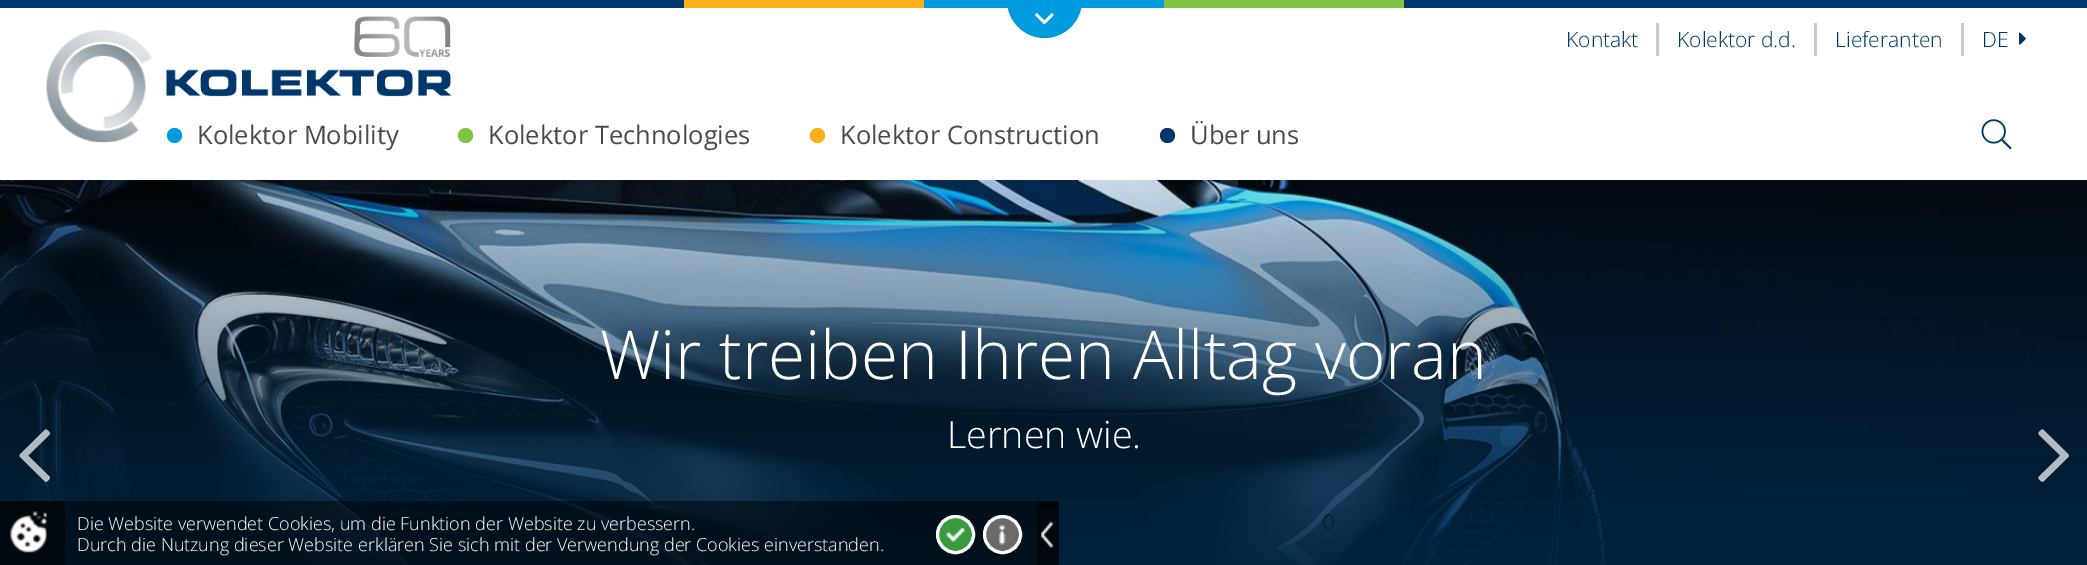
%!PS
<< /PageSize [2087 565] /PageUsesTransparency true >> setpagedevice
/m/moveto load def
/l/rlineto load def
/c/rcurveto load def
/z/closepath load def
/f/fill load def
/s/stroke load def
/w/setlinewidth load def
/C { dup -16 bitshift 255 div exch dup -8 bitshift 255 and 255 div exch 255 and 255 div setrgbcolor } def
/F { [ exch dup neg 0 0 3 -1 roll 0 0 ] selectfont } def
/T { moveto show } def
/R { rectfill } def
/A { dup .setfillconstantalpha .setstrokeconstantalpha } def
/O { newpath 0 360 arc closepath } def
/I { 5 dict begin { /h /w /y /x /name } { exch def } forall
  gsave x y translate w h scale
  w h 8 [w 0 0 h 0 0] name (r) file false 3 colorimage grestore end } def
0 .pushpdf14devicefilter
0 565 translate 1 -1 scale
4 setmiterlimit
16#FFFFFF C
0 0 2087 565 R
16#00386C C
0 0 2087 8 R
16#FCAF17 C
684 0 240 8 R
16#009BDF C
1007 0 m 75 0 l 0 .5 l 0 20.5 -17 37.5 -37.5 37.5 c -20.5 0 -37.5 -17 -37.5 -37.5 c z f
924 0 240 8 R
(1.rgb) 1035 13 19 12 I
16#80C342 C
1164 0 240 8 R
(2.rgb) 166 16 286 81 I
16#C9C9C9 C
1656 23 3 33 R
/OpenSans-Light 21 F
16#00386C C
(Kontakt) 1566 47 T
16#C9C9C9 C
1814 23 3 33 R
16#00386C C
(Kolektor d.d.) 1677 47 T
16#C9C9C9 C
1961 23 3 33 R
16#00386C C
(Lieferanten) 1835 47 T
(DE) 1982 47 T
(3.rgb) 2019 32 7 13 I
(4.rgb) 46 30 106 113 I
16#009BDF C
174.5 135.5 7.5 O f
/OpenSans-Regular 25.5 F
16#4A4A4A C
(Kolektor Mobility) 197 144 T
16#80C342 C
465.5 135.5 7.5 O f
16#4A4A4A C
(Kolektor Technologies) 488 144 T
16#FCAF17 C
817.5 135.5 7.5 O f
16#4A4A4A C
(Kolektor Construction) 840 144 T
16#00386C C
1167.5 135.5 7.5 O f
16#4A4A4A C
(Über uns) 1190 144 T
(5.rgb) 1981 119 31 31 I
(6.rgb) 0 180 2087 385 I
/OpenSans-Light 67.5 F
16#FFFFFF C
(Wir treiben Ihren Alltag voran) 600 379 T
/OpenSans-Light 37.5 F
(Lernen wie.) 947 448 T
(7.rgb) 19 429 32 53 I
(8.rgb) 2038 429 31 53 I
0.5 A
16#000000 C
0 501 65 64 R
1037 501 22 64 R
0 501 1059 64 R
1 A
(9.rgb) 10 511 37 42 I
/OpenSans-Light 18 F
16#FFFFFF C
(Die Website verwendet Cookies, um die Funktion der Website zu verbessern.) 77 530 T
(Durch die Nutzung dieser Website erklären Sie sich mit der Verwendung der Cookies einverstanden.) 77 551 T
16#389C3F C
955.5 534.5 19.5 O f
(10.rgb) 946 528 19 14 I
16#FFFFFF C
3 w
955.5 534.5 18 O s
16#6A6A6A C
1002.5 534.5 19.5 O f
(11.rgb) 998 524 8 21 I
16#FFFFFF C
1002.5 534.5 18 O s
(12.rgb) 1041 522 13 26 I
.poppdf14devicefilter showpage
